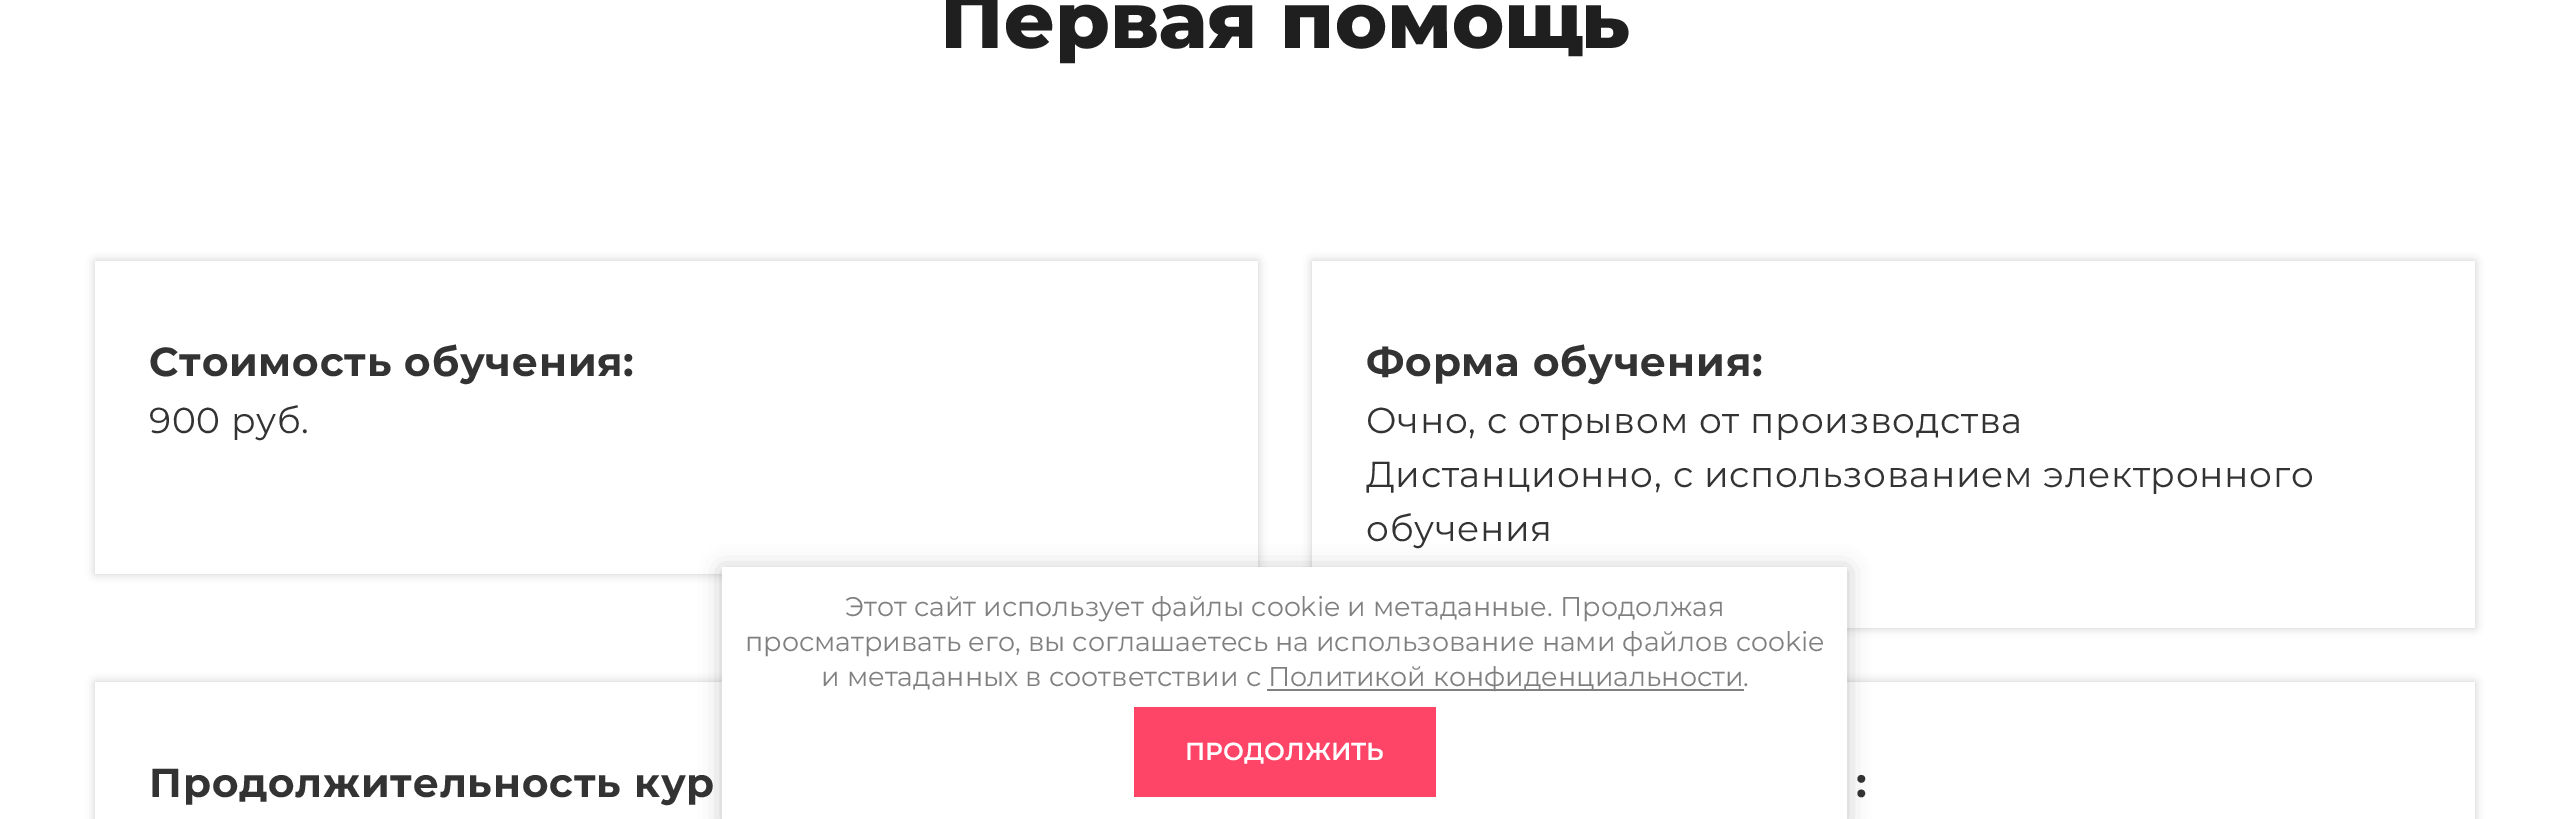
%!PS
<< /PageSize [2568 819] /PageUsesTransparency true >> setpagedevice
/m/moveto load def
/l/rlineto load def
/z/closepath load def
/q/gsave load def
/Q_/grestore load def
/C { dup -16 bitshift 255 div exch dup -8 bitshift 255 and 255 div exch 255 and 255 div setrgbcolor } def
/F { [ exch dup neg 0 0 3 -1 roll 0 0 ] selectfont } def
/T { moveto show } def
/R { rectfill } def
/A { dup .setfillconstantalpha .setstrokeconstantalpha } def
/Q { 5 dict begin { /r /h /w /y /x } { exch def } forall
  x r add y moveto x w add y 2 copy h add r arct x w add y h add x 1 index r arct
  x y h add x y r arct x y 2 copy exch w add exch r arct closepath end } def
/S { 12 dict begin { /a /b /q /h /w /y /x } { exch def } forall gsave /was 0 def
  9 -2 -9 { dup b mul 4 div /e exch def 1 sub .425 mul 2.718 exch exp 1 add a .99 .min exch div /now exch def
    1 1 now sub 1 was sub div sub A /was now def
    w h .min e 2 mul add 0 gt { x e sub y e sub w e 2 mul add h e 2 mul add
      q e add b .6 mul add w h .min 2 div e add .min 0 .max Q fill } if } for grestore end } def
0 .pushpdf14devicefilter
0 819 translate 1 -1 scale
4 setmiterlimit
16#FFFFFF C
0 0 2568 819 R
/Montserrat-ExtraBold 78.75 F
16#1F1F20 C
(Первая помощь) 940 48 T
16#CCCCCC C
95 261 1163 313 0 4.5 1 S
16#FFFFFF C
95 261 1163 313 R
/Montserrat-Bold 40.5 F
16#333333 C
149 376 m .8 0 (Стоимость обучения:) ashow
/Montserrat-Regular 36 F
149 433 m .7 0 (900 руб.) ashow
16#CCCCCC C
1312 261 1163 367 0 4.5 1 S
16#FFFFFF C
1312 261 1163 367 R
/Montserrat-Bold 40.5 F
16#333333 C
1366 376 m .8 0 (Форма обучения:) ashow
/Montserrat-Regular 36 F
1366 433 m .7 0 (Очно, с отрывом от производства) ashow
1366 487 m .7 0 (Дистанционно, с использованием электронного) ashow
1366 541 m .7 0 (обучения) ashow
16#CCCCCC C
95 682 1163 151 0 4.5 1 S
16#FFFFFF C
95 682 627 137 R
/Montserrat-Bold 40.5 F
16#333333 C
149 797 m .8 0 (Продолжительность кур) ashow
q
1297 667 m 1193 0 l 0 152 l -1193 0 l z 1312 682 m 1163 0 l 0 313 l -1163 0 l z eoclip newpath
16#CCCCCC C
1312 682 1163 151 0 4.5 1 S
Q_
1856 797 m .8 0 (:) ashow
16#000000 C
722 569 1125 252 0 11 .23 S
16#FFFFFF C
722 567 1125 252 R
/Montserrat-Regular 27 F
16#808080 C
(Этот сайт использует файлы cookie и метаданные. Продолжая) 845 616 T
(просматривать его, вы соглашаетесь на использование нами файлов cookie) 745 651 T
(и метаданных в соответствии с) 821 686 T
1267 689 477 2 R
(Политикой конфиденциальности.) 1268 686 T
16#FF4567 C
1134 707 302 90 R
/Montserrat-SemiBold 24.75 F
16#FFFFFF C
(ПРОДОЛЖИТЬ) 1185 760 T
.poppdf14devicefilter showpage
